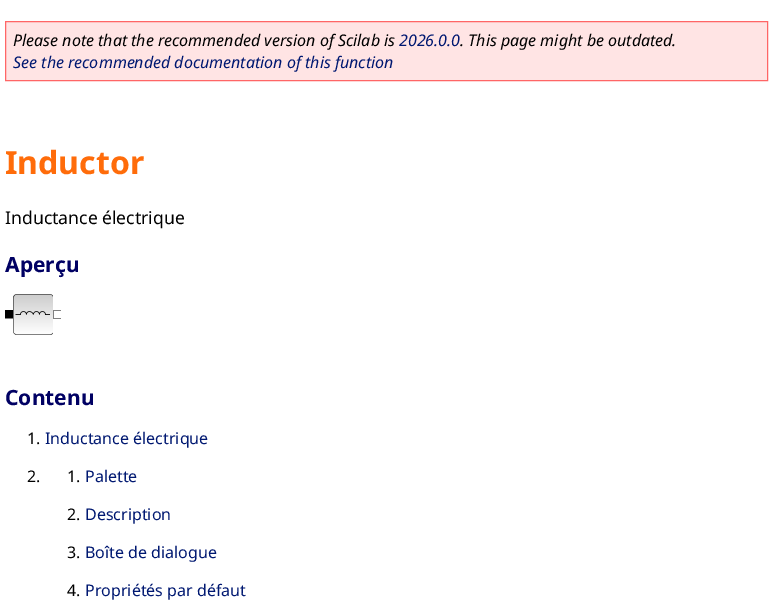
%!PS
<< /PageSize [773 615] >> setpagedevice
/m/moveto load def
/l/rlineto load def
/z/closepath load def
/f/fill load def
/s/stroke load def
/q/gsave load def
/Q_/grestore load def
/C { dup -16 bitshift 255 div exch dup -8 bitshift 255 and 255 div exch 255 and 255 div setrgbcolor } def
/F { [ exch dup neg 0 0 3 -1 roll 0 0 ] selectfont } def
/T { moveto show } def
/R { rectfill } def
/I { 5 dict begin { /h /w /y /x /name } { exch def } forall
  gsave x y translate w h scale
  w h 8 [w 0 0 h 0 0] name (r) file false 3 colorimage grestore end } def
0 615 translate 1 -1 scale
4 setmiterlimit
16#FFFFFF C
0 0 773 615 R
16#FFE4E4 C
5.5 21.5 m 762 0 l 0 59 l -762 0 l z q f Q_
16#FF6666 C
s
/NotoSans-Italic 16 F
16#000000 C
(Please note that the recommended version of Scilab is) 13 46 T
16#001871 C
(2026.0.0) 399 46 T
16#000000 C
(. This page might be outdated.) 460 46 T
16#001871 C
(See the recommended documentation of this function) 13 68 T
/NotoSans-Bold 32 F
16#FF6C0A C
(Inductor) 5 174 T
/NotoSans-Regular 17.6 F
16#000000 C
(Inductance électrique) 5 224 T
/NotoSans-Bold 21 F
16#000063 C
(Aperçu) 5 272 T
(1.rgb) 5 294 56 41 I
(Contenu) 5 405 T
/NotoSans-Regular 16 F
16#000000 C
(1.) 27 444 T
16#001871 C
(Inductance électrique) 45 444 T
16#000000 C
(2.) 27 482 T
(1.) 67 482 T
16#001871 C
(Palette) 85 482 T
16#000000 C
(2.) 67 520 T
16#001871 C
(Description) 85 520 T
16#000000 C
(3.) 67 558 T
16#001871 C
(Boîte de dialogue) 85 558 T
16#000000 C
(4.) 67 596 T
16#001871 C
(Propriétés par défaut) 85 596 T
showpage
